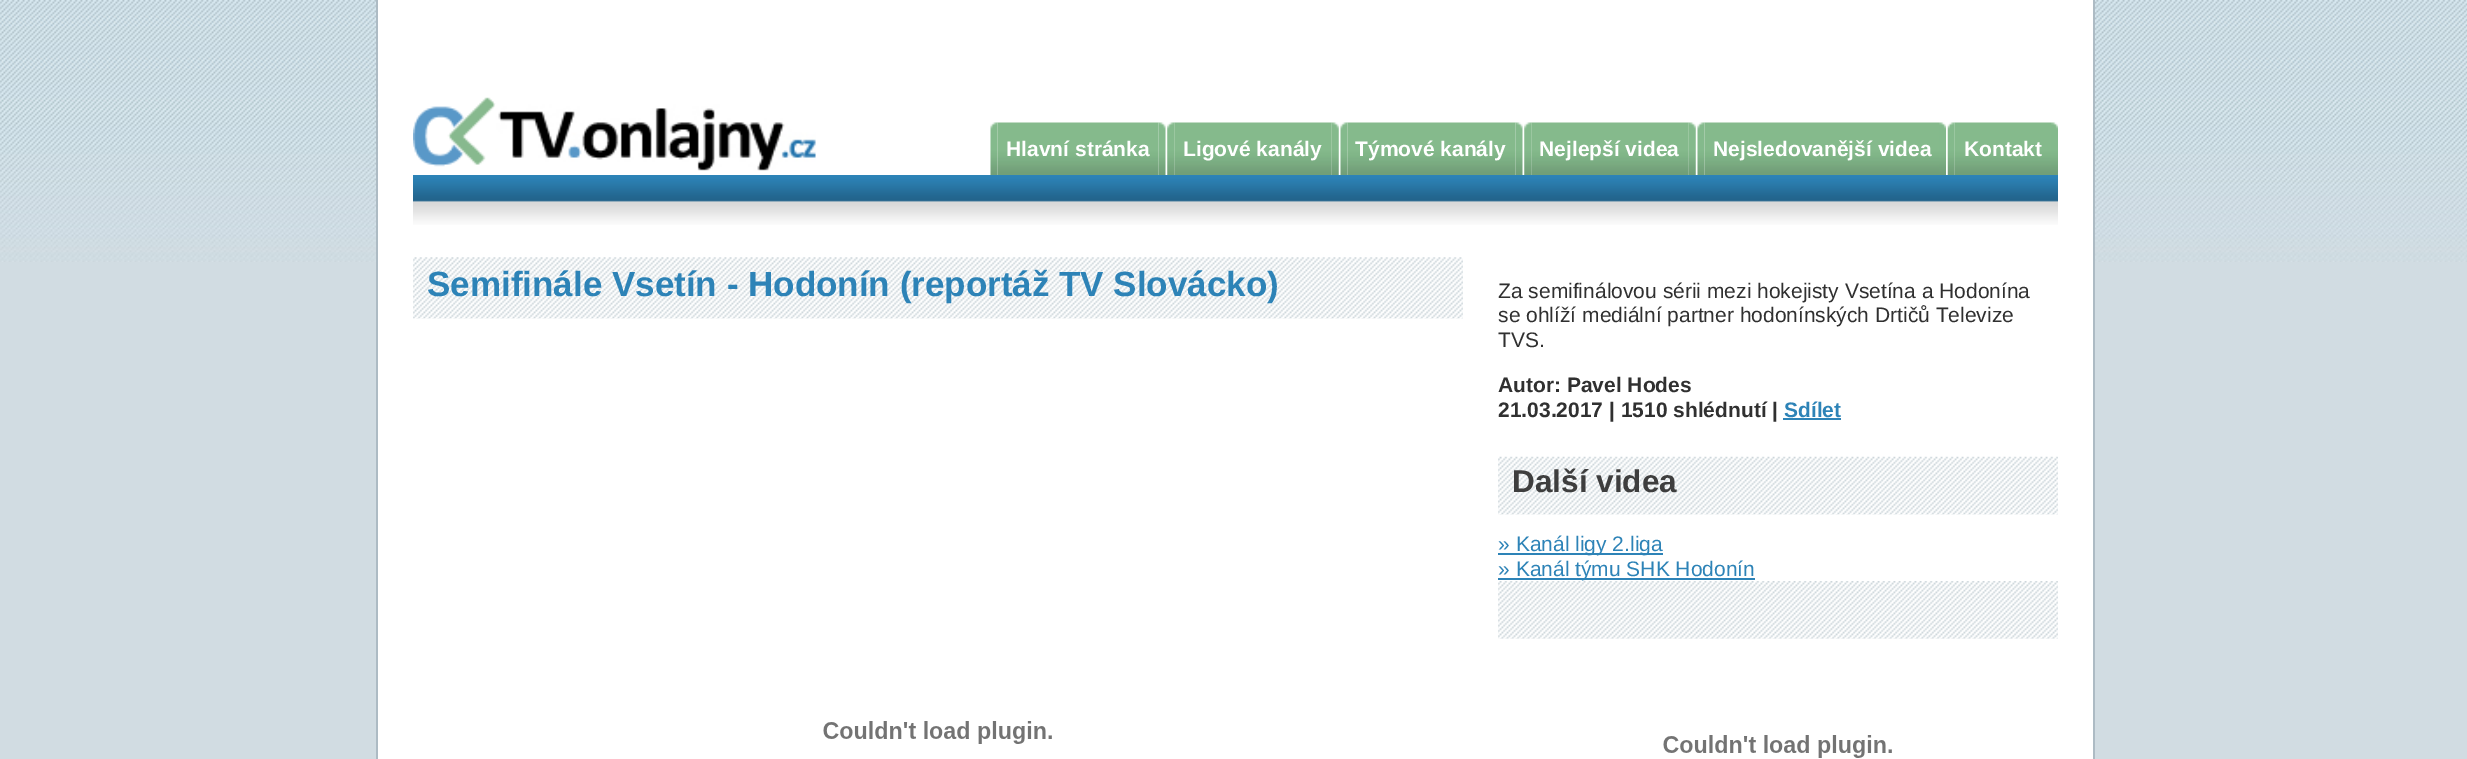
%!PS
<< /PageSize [2467 759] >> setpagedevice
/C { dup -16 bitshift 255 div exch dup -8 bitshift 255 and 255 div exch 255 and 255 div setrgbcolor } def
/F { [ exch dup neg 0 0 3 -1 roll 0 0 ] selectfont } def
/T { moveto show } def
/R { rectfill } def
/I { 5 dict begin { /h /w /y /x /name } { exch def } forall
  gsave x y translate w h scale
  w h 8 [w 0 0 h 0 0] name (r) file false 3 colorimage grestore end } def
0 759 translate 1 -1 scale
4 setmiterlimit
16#D1DCE2 C
0 0 2467 759 R
(1.rgb) 0 0 2467 262 I
16#FFFFFF C
378 0 1715 759 R
16#ADBBC4 C
2093 0 2 759 R
376 0 2 759 R
(2.rgb) 413 175 1645 50 I
(3.rgb) 413 97 83 70 I
(4.rgb) 495 104 321 67 I
(5.rgb) 990 122 8 53 I
(6.rgb) 997 122 162 53 I
/LiberationSans-Bold 21 F
16#FFFFFF C
(Hlavní stránka) 1006 156 T
(7.rgb) 1158 122 8 53 I
(8.rgb) 1167 122 8 53 I
(9.rgb) 1174 122 158 53 I
(Ligové kanály) 1183 156 T
(10.rgb) 1331 122 8 53 I
(5.rgb) 1340 122 8 53 I
(11.rgb) 1347 122 169 53 I
(Týmové kanály) 1355 156 T
(7.rgb) 1515 122 8 53 I
(8.rgb) 1524 122 8 53 I
(9.rgb) 1531 122 158 53 I
(Nejlepší videa) 1539 156 T
(12.rgb) 1688 122 8 53 I
(5.rgb) 1697 122 8 53 I
(13.rgb) 1704 122 235 53 I
(Nejsledovanější videa) 1713 156 T
(14.rgb) 1939 122 7 53 I
(15.rgb) 1947 122 8 53 I
(16.rgb) 1954 122 97 53 I
(Kontakt) 1964 156 T
(14.rgb) 2051 122 7 53 I
(17.rgb) 413 257 1050 62 I
/LiberationSans-Bold 35 F
16#2D83B7 C
(Semifinále Vsetín - Hodonín \(reportáž TV Slovácko\)) 427 296 T
(18.rgb) 823 721 229 23 I
/LiberationSans-Regular 21 F
16#303030 C
(Za semifinálovou sérii mezi hokejisty Vsetína a Hodonína) 1498 298 T
(se ohlíží mediální partner hodonínských Drtičů Televize) 1498 322 T
(TVS.) 1498 347 T
/LiberationSans-Bold 21 F
(Autor: Pavel Hodes) 1498 392 T
(21.03.2017 | 1510 shlédnutí |) 1498 417 T
16#2D83B7 C
(Sdílet) 1784 417 T
1783 418 58 2 R
(19.rgb) 1498 456 560 59 I
/LiberationSans-Bold 31.5 F
16#3E3E3E C
(Další videa) 1512 492 T
16#2D83B7 C
1498 553 165 2 R
/LiberationSans-Regular 21 F
(» Kanál ligy 2.liga) 1498 551 T
1498 578 257 2 R
(» Kanál týmu SHK Hodonín) 1498 576 T
(20.rgb) 1498 581 560 58 I
(18.rgb) 1663 735 229 23 I
showpage
